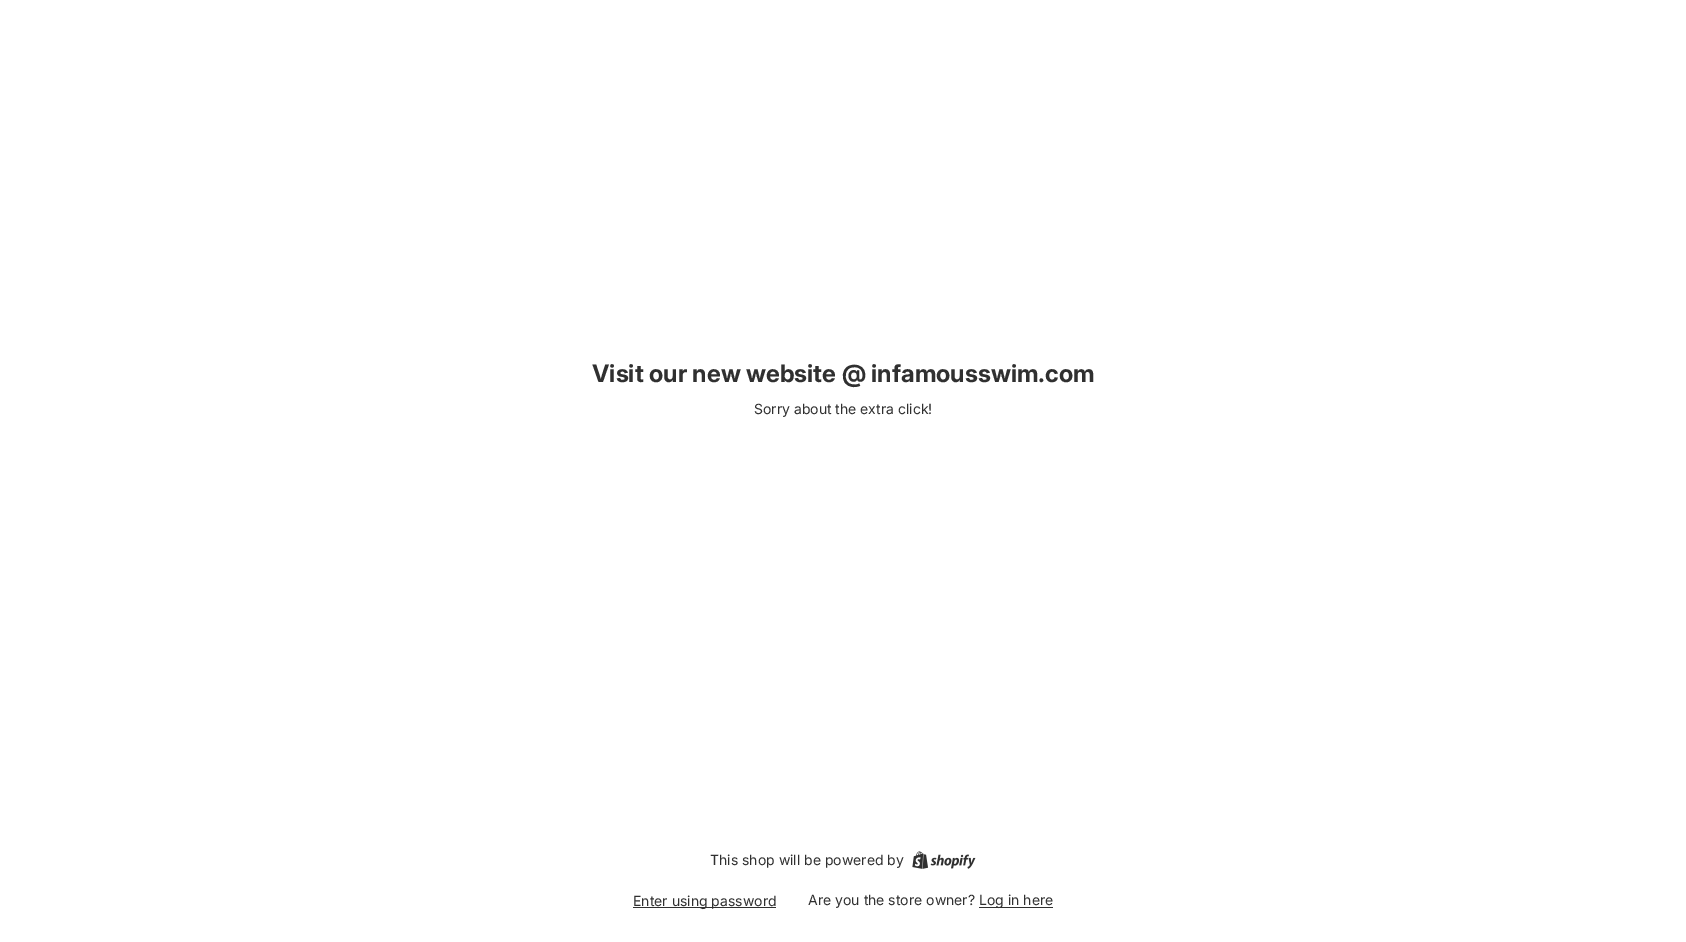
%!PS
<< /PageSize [1686 942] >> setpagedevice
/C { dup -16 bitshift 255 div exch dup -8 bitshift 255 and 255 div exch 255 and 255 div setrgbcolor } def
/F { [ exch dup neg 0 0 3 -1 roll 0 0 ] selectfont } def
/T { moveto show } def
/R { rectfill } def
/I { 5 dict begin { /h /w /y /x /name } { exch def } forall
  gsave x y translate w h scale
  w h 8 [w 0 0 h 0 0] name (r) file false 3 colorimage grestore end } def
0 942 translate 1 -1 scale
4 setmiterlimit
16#FFFFFF C
0 0 1686 942 R
/Inter-Bold 24 F
16#303030 C
(Visit our new website @ infamousswim.com) 592 382 T
/Inter-Regular 14 F
(Sorry about the extra click!) 754 414 T
(This shop will be powered by) 710 865 T
(1.rgb) 912 851 64 18 I
633 907 143 1 R
(Enter using password) 633 906 T
(Are you the store owner?) 808 905 T
979 907 74 1 R
(Log in here) 979 905 T
showpage
